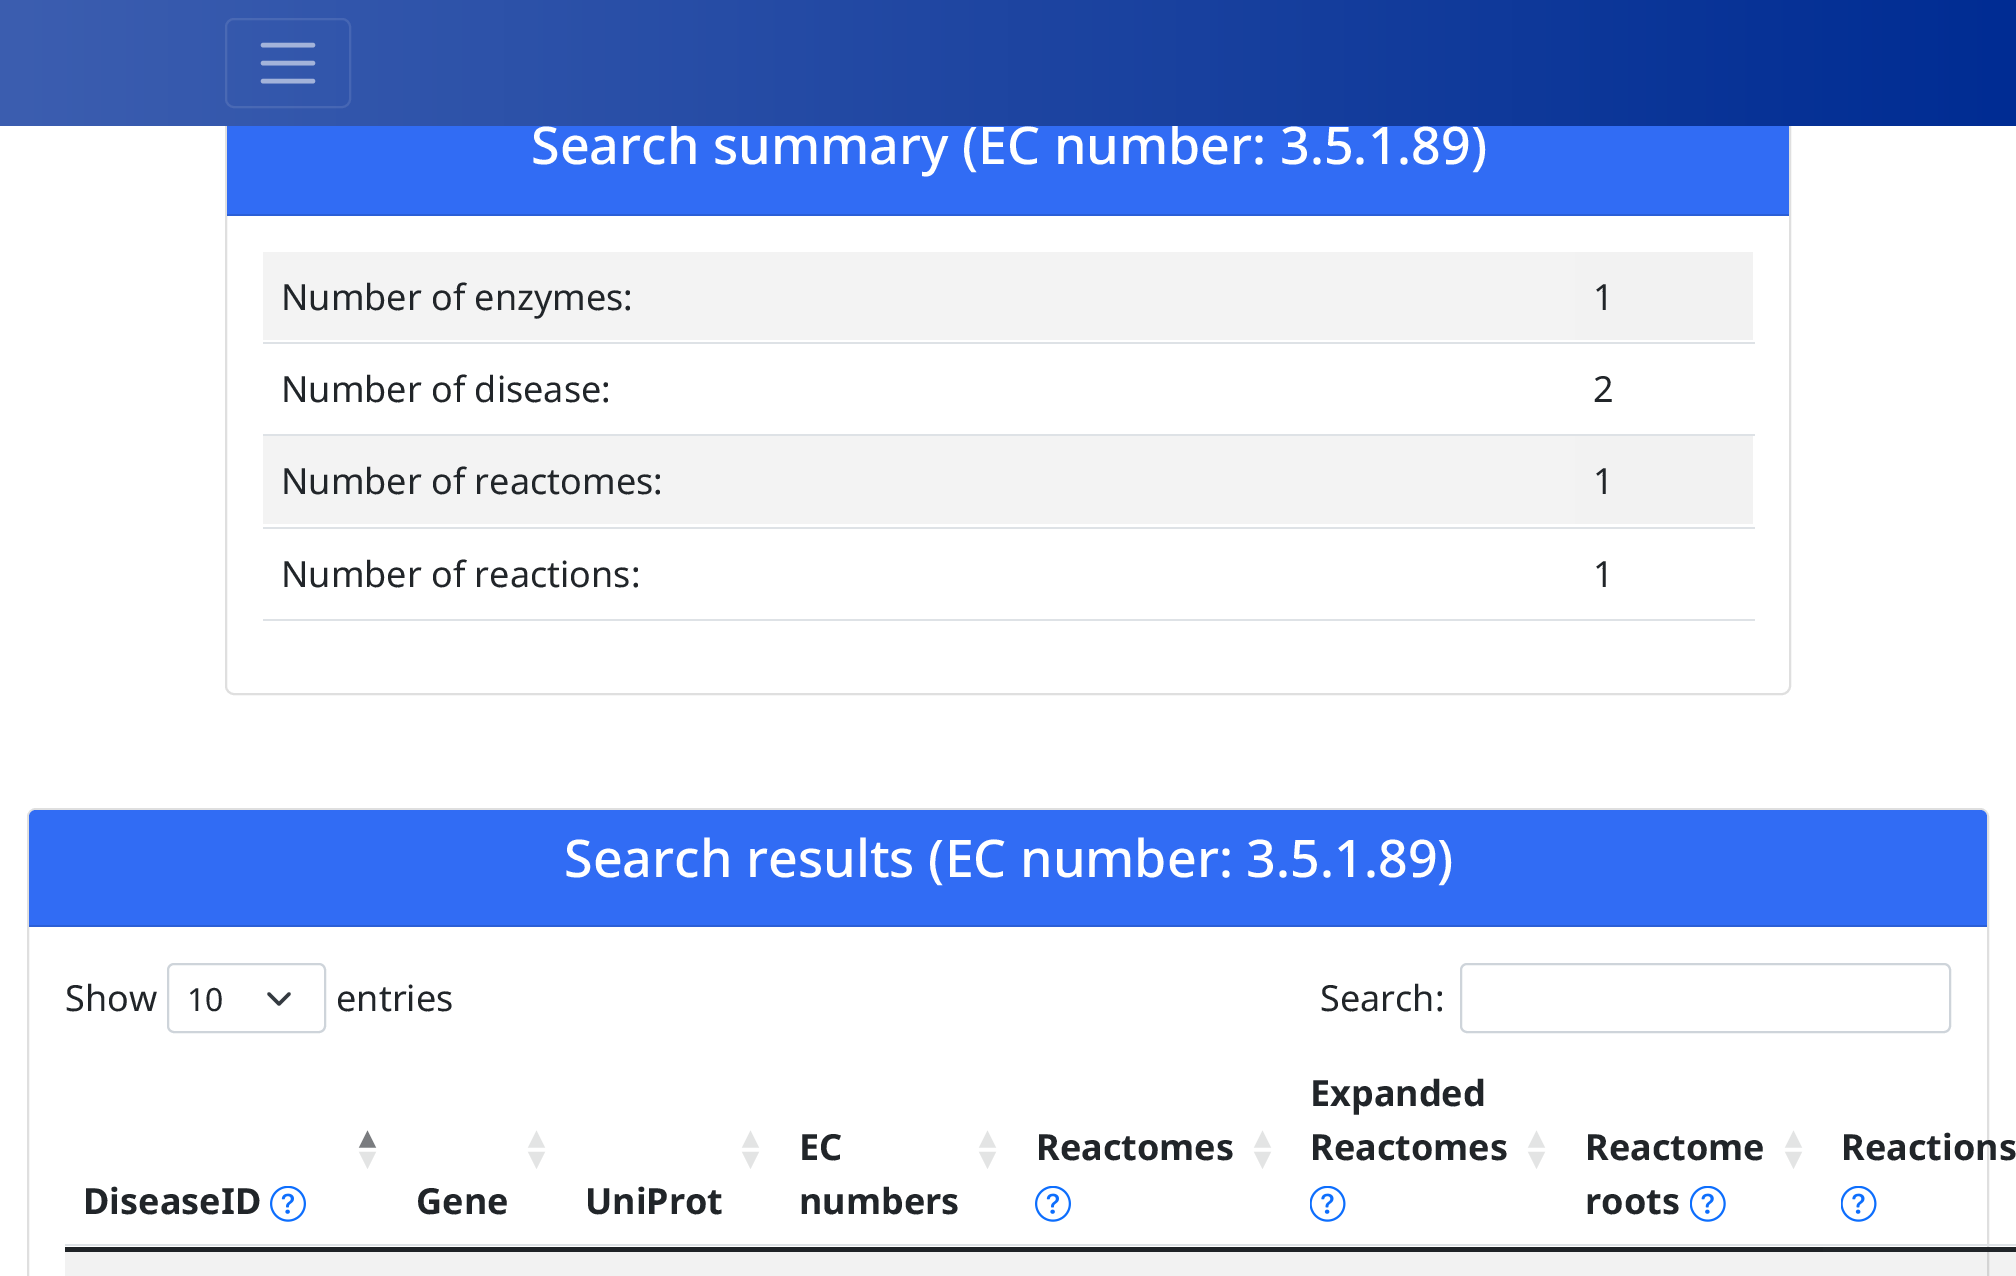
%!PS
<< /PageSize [2016 1276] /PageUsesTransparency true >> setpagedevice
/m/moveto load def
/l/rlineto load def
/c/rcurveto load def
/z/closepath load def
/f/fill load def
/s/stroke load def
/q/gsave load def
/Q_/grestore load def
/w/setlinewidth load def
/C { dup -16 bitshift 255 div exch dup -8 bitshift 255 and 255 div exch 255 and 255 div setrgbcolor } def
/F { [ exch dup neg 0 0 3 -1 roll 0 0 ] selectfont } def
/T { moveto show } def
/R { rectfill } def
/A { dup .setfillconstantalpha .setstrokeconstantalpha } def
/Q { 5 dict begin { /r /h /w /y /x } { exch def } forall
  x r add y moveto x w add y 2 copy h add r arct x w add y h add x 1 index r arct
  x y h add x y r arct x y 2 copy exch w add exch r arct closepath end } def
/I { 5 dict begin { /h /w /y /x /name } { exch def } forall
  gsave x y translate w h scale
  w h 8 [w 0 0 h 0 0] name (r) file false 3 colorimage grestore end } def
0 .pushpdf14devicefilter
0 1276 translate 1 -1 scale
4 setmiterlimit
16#FFFFFF C
0 0 2016 1276 R
16#F2F2F2 C
65 1252 1758 24 R
16#DFDFDF C
2 w
226 96 1564 598 8 Q s
16#316CF4 C
227 126 1562 88 R
/NotoSans-Medium 52 F
16#FFFFFF C
(Search summary \(EC number: 3.5.1.89\)) 531 164 T
q 0 0 m 2016 0 l 0 126 l -2016 0 l z clip newpath
<< /ShadingType 2 /ColorSpace /DeviceRGB /Coords [2016 63 0 63] /Extend [true true] /Function << /FunctionType 2 /Domain [0 1] /C0 [0 .173 .576] /C1 [.235 .369 .69] /N 1 >> >> shfill Q_
0.1 A
226 19 124 88 8 Q s
1 A
16#A3B3DA C
4.5 w
1 setlinecap
263 45 m 50 0 l 263 63 m 50 0 l 263 81 m 50 0 l s
16#2B5FD6 C
227 214 1562 2 R
16#F3F3F3 C
263 252 1312 88 R
/NotoSans-Regular 36 F
16#212529 C
(Number of enzymes:) 281 310 T
16#F2F2F2 C
1575 252 178 88 R
16#DEE2E6 C
263 342 1492 2 R
16#212529 C
(1) 1593 310 T
(Number of disease:) 281 402 T
16#DEE2E6 C
263 434 1492 2 R
16#212529 C
(2) 1593 402 T
16#F3F3F3 C
263 436 1312 88 R
16#212529 C
(Number of reactomes:) 281 494 T
16#F2F2F2 C
1575 436 178 88 R
16#DEE2E6 C
263 527 1492 2 R
16#212529 C
(1) 1593 494 T
(Number of reactions:) 281 587 T
16#DEE2E6 C
263 619 1492 2 R
16#212529 C
(1) 1593 587 T
16#DFDFDF C
2 w
0 setlinecap
28 809 1960 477 8 Q s
16#316CF4 C
36 810 m 1944 0 l 4 0 7 3 7 7 c 0 110 l -1958 0 l 0 -110 l 0 -4 3 -7 7 -7 c z f
16#2B5FD6 C
29 925 1958 2 R
/NotoSans-Medium 52 F
16#FFFFFF C
(Search results \(EC number: 3.5.1.89\)) 564 877 T
/NotoSans-Regular 36 F
16#212529 C
(Show) 65 1011 T
16#343A40 C
3.4 w
1 setlinecap
1 setlinejoin
269 994 m 10 10 l 10 -10 l s
16#CED4DA C
2 w
0 setlinecap
0 setlinejoin
168 964 157 68 6 Q s
/NotoSans-Regular 32 F
16#212529 C
(10) 187 1011 T
/NotoSans-Regular 36 F
(entries) 336 1011 T
(Search:) 1320 1011 T
16#CED4DA C
1461 964 489 68 6 Q s
16#DEE2E6 C
65 1244 1951 2 R
/DejaVuSans-Bold 32 F
16#7A7C7F C
(▴) 359 1148 T
16#E3E4E4 C
(▾) 359 1169 T
/NotoSans-Bold 36 F
16#212529 C
(DiseaseID) 83 1214 T
(1.rgb) 270 1186 36 36 I
/DejaVuSans-Bold 32 F
16#E3E4E4 C
(▴) 528 1148 T
(▾) 528 1169 T
/NotoSans-Bold 36 F
16#212529 C
(Gene) 416 1214 T
/DejaVuSans-Bold 32 F
16#E3E4E4 C
(▴) 742 1148 T
(▾) 742 1169 T
/NotoSans-Bold 36 F
16#212529 C
(UniProt) 585 1214 T
(EC) 799 1160 T
/DejaVuSans-Bold 32 F
16#E3E4E4 C
(▴) 979 1148 T
(▾) 979 1169 T
/NotoSans-Bold 36 F
16#212529 C
(numbers) 799 1214 T
(Reactomes) 1036 1160 T
/DejaVuSans-Bold 32 F
16#E3E4E4 C
(▴) 1254 1148 T
(▾) 1254 1169 T
(1.rgb) 1035 1186 36 36 I
/NotoSans-Bold 36 F
16#212529 C
(Expanded) 1310 1106 T
(Reactomes) 1310 1160 T
/DejaVuSans-Bold 32 F
16#E3E4E4 C
(▴) 1528 1148 T
(▾) 1528 1169 T
(2.rgb) 1310 1186 36 36 I
/NotoSans-Bold 36 F
16#212529 C
(Reactome) 1585 1160 T
/DejaVuSans-Bold 32 F
16#E3E4E4 C
(▴) 1785 1148 T
(▾) 1785 1169 T
/NotoSans-Bold 36 F
16#212529 C
(roots) 1585 1214 T
(3.rgb) 1690 1186 36 36 I
(Reactions) 1841 1160 T
(2.rgb) 1841 1186 36 36 I
1823 1247 193 5 R
16#1F2327 C
65 1247 1758 5 R
0.05 A
16#000000 C
1823 1252 193 24 R
.poppdf14devicefilter showpage
